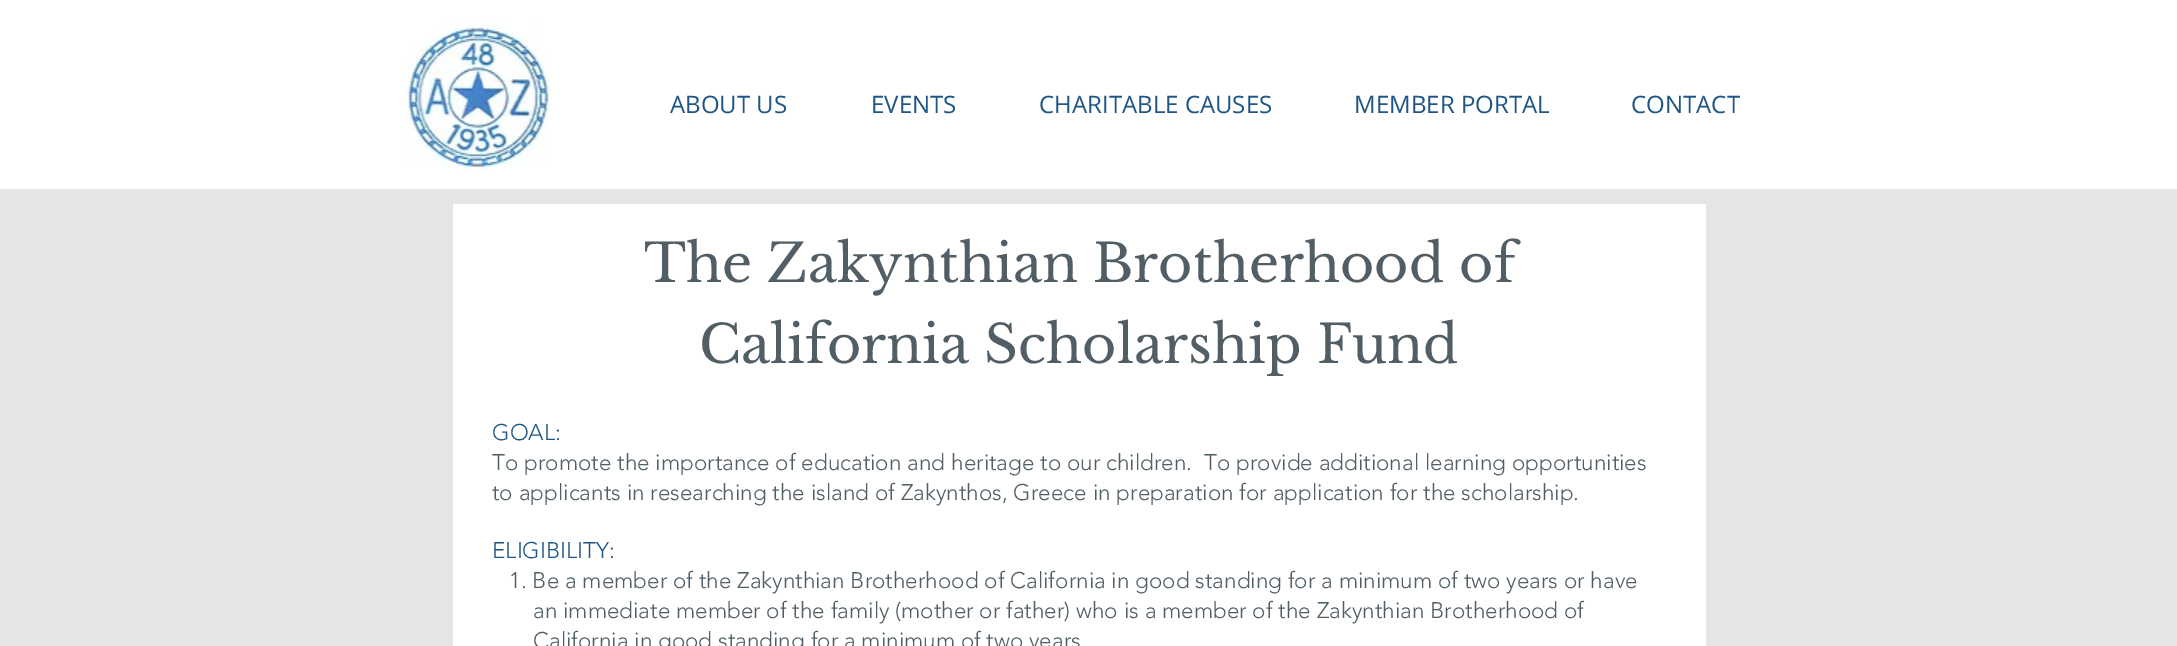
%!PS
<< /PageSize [2177 646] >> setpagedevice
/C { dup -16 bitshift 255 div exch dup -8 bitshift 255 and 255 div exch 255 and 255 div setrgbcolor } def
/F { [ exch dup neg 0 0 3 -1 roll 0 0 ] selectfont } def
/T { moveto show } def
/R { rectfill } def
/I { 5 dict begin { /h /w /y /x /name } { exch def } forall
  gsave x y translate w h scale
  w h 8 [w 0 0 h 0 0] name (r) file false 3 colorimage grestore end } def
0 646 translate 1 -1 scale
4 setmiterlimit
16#E5E5E5 C
0 0 2177 646 R
16#FFFFFF C
0 0 2177 189 R
(1.rgb) 406 21 145 150 I
/OpenSans-Regular 24 F
16#205685 C
(ABOUT US) 670 113 T
(EVENTS) 871 113 T
(CHARITABLE CAUSES) 1039 113 T
(MEMBER PORTAL) 1354 113 T
(CONTACT) 1631 113 T
16#FFFFFF C
453 204 1253 442 R
/LibreBaskerville-Regular 52.5 F
16#515E65 C
(The Zakynthian Brotherhood of) 644 282 T
(California Scholarship Fund) 699 363 T
/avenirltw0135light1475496-Light 22.5 F
16#205685 C
(GOAL:) 492 440 T
16#515E65 C
(To promote the importance of education and heritage to our children.  To provide additional learning opportunities) 492 470 T
(to applicants in researching the island of Zakynthos, Greece in preparation for application for the scholarship.) 492 500 T
16#205685 C
(ELIGIBILITY:) 492 558 T
16#515E65 C
(1. Be a member of the Zakynthian Brotherhood of California in good standing for a minimum of two years or have) 509 588 T
(an immediate member of the family \(mother or father\) who is a member of the Zakynthian Brotherhood of) 533 618 T
(California in good standing for a minimum of two years) 533 648 T
showpage
